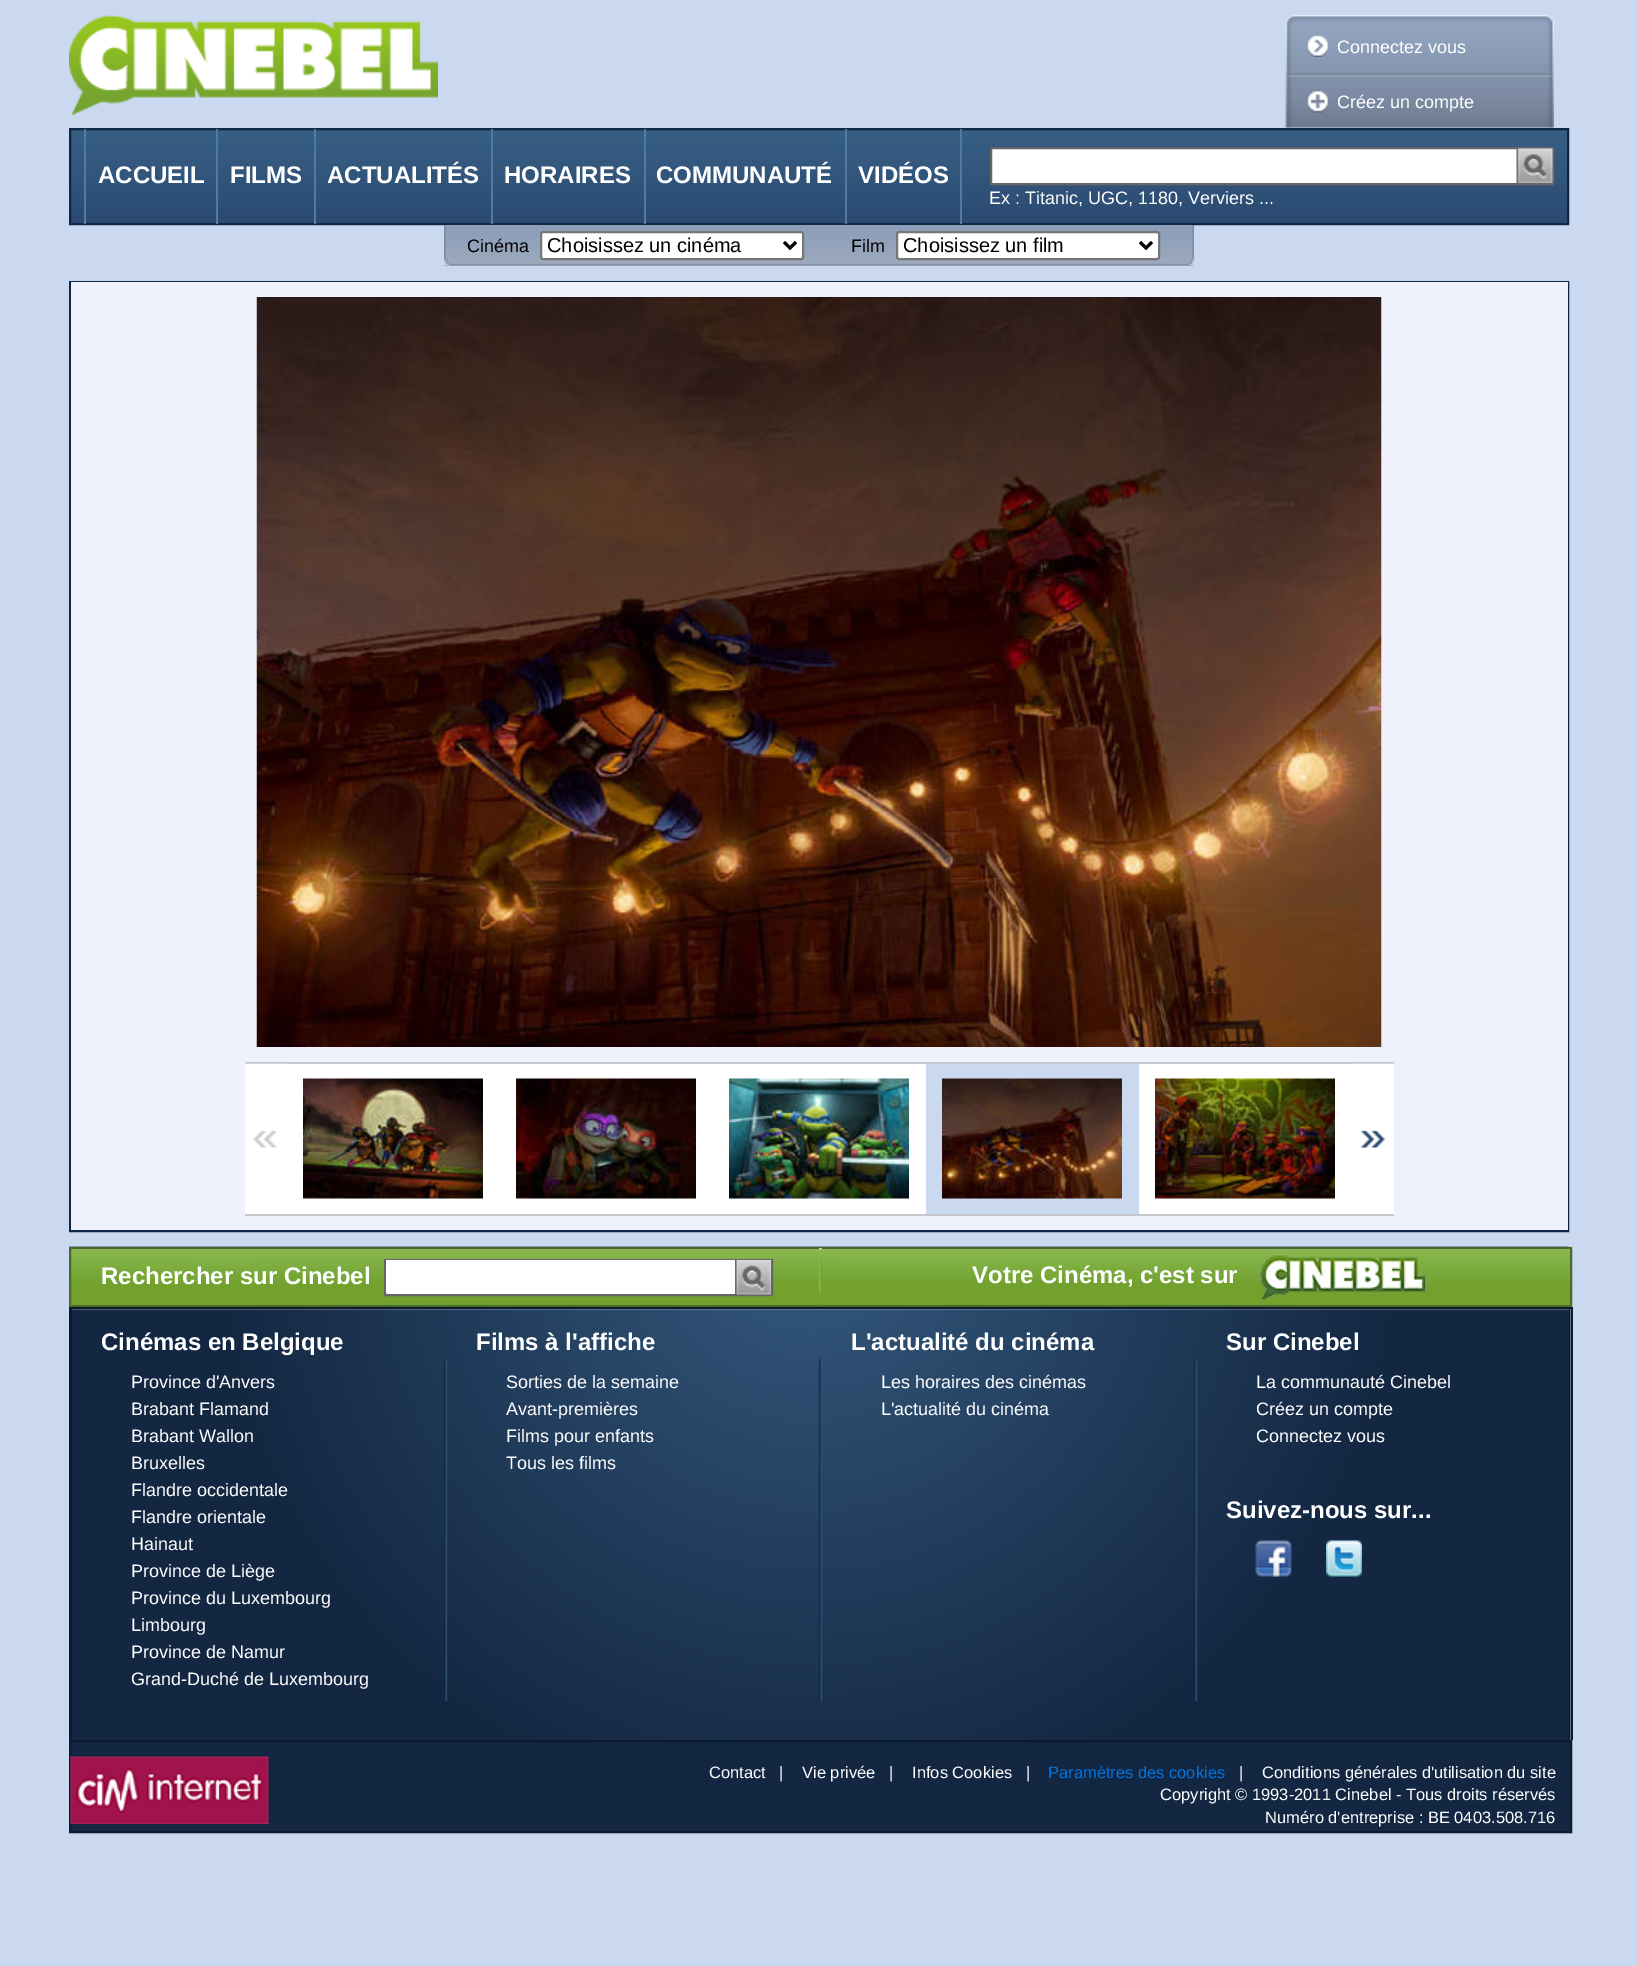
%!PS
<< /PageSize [1637 1966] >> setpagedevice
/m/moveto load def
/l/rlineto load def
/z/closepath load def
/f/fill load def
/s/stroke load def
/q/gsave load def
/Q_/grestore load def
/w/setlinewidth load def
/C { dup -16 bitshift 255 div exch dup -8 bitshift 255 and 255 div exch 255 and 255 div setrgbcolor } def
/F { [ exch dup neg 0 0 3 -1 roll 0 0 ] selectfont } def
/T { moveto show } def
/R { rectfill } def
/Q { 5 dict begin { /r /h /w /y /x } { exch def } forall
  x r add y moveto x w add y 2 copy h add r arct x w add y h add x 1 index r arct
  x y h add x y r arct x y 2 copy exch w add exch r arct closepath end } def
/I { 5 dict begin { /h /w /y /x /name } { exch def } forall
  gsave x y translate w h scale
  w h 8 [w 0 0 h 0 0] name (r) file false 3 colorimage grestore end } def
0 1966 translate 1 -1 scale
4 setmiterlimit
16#CAD9EF C
0 0 1637 1966 R
(1.rgb) 69 15 369 101 I
(2.rgb) 1285 15 254 113 I
(3.rgb) 1307 35 21 22 I
/LiberationSans-Regular 18 F
16#FFFFFF C
(Connectez vous) 1337 53 T
(4.rgb) 1307 91 21 22 I
(Créez un compte) 1337 108 T
(5.rgb) 1539 15 15 113 I
(6.rgb) 71 130 1496 93 I
16#102645 C
2 w
70 129 1498 95 rectstroke
16#4F7BA0 C
216 129 2 95 R
84 129 2 95 R
/LiberationSans-Bold 24 F
16#FFFFFF C
(ACCUEIL) 98 183 T
16#4F7BA0 C
314 129 2 95 R
16#FFFFFF C
(FILMS) 230 183 T
16#4F7BA0 C
491 129 2 95 R
16#FFFFFF C
(ACTUALITÉS) 327 183 T
16#4F7BA0 C
644 129 2 95 R
16#FFFFFF C
(HORAIRES) 504 183 T
16#4F7BA0 C
845 129 2 95 R
16#FFFFFF C
(COMMUNAUTÉ) 656 183 T
16#4F7BA0 C
960 129 2 95 R
16#FFFFFF C
(VIDÉOS) 858 183 T
992 149 525 34 R
16#666666 C
991 148 562 36 rectstroke
(7.rgb) 1516 148 37 35 I
/LiberationSans-Regular 18 F
16#FFFFFF C
(Ex : Titanic, UGC, 1180, Verviers ...) 989 204 T
16#9BA8BD C
444 265 750 1 R
(8.rgb) 444 225 375 41 I
16#000000 C
(Cinéma) 467 252 T
16#FFFFFF C
541 232 262 27 2 Q q f Q_
16#767676 C
s
16#000000 C
3 w
784 242 m 6 6 l 6 -6 l s
/LiberationSans-Regular 20 F
(Choisissez un cinéma) 547 252 T
(9.rgb) 819 225 375 41 I
/LiberationSans-Regular 18 F
(Film) 851 252 T
16#FFFFFF C
897 232 262 27 2 Q q f Q_
16#767676 C
2 w
s
16#000000 C
3 w
1140 242 m 6 6 l 6 -6 l s
/LiberationSans-Regular 20 F
(Choisissez un film) 903 252 T
16#102645 C
2 w
70 282 1498 949 rectstroke
16#EFF2FD C
71 282 1497 948 R
(10.rgb) 256 297 1126 750 I
16#FFFFFF C
245 1064 1149 150 R
16#C5C7CC C
245 1062 1149 2 R
245 1214 1149 2 R
(11.rgb) 244 1063 43 150 I
(12.rgb) 303 1078 180 121 I
(13.rgb) 516 1078 180 121 I
(14.rgb) 729 1078 180 121 I
16#CAD9EF C
926 1064 213 150 R
(15.rgb) 942 1078 180 121 I
(16.rgb) 1155 1078 180 121 I
(17.rgb) 1351 1063 42 86 I
(18.rgb) 69 1246 1500 1 I
(19.rgb) 71 1249 1499 56 I
16#4A6A28 C
70 1248 1501 58 rectstroke
/LiberationSans-Bold 24 F
16#FFFFFF C
(Rechercher sur Cinebel) 101 1284 T
386 1292 349 2 R
16#666666 C
385 1260 387 35 rectstroke
16#FFFFFF C
386 1260 349 32 R
(20.rgb) 735 1260 36 35 I
(21.rgb) 819 1248 3 58 I
(Votre Cinéma, c'est sur) 972 1283 T
(22.rgb) 1260 1253 167 48 I
(23.rgb) 71 1309 1500 431 I
16#0B1A2C C
69 1307 1503 2 R
1571 1307 2 433 R
69 1307 2 433 R
16#FFFFFF C
(Cinémas en Belgique) 101 1350 T
/LiberationSans-Regular 18 F
(Province d'Anvers) 131 1388 T
(Brabant Flamand) 131 1415 T
(Brabant Wallon) 131 1442 T
(Bruxelles) 131 1469 T
(Flandre occidentale) 131 1496 T
(Flandre orientale) 131 1523 T
(Hainaut) 131 1550 T
(Province de Liège) 131 1577 T
(Province du Luxembourg) 131 1604 T
(Limbourg) 131 1631 T
(Province de Namur) 131 1658 T
(Grand-Duché de Luxembourg) 131 1685 T
/LiberationSans-Bold 24 F
(Films à l'affiche) 476 1350 T
/LiberationSans-Regular 18 F
(Sorties de la semaine) 506 1388 T
(Avant-premières) 506 1415 T
(Films pour enfants) 506 1442 T
(Tous les films) 506 1469 T
/LiberationSans-Bold 24 F
(L'actualité du cinéma) 851 1350 T
/LiberationSans-Regular 18 F
(Les horaires des cinémas) 881 1388 T
(L'actualité du cinéma) 881 1415 T
/LiberationSans-Bold 24 F
(Sur Cinebel) 1226 1350 T
/LiberationSans-Regular 18 F
(La communauté Cinebel) 1256 1388 T
(Créez un compte) 1256 1415 T
(Connectez vous) 1256 1442 T
/LiberationSans-Bold 24 F
(Suivez-nous sur...) 1226 1518 T
(24.rgb) 1255 1540 37 37 I
(25.rgb) 1326 1540 36 37 I
16#132743 C
70 1741 m 1501 0 l 0 91 l -1501 0 l z q f Q_
16#0B1A2C C
s
(26.rgb) 70 1756 199 68 I
/LiberationSans-Regular 16.5 F
16#FFFFFF C
(Contact) 709 1778 T
(|) 779 1778 T
(Vie privée) 802 1778 T
(|) 889 1778 T
(Infos Cookies) 912 1778 T
(|) 1026 1778 T
16#0374DD C
(Paramètres des cookies) 1048 1778 T
16#FFFFFF C
(|) 1239 1778 T
(Conditions générales d'utilisation du site) 1262 1778 T
(Copyright © 1993-2011 Cinebel - Tous droits réservés) 1160 1800 T
(Numéro d'entreprise : BE 0403.508.716) 1265 1823 T
showpage
